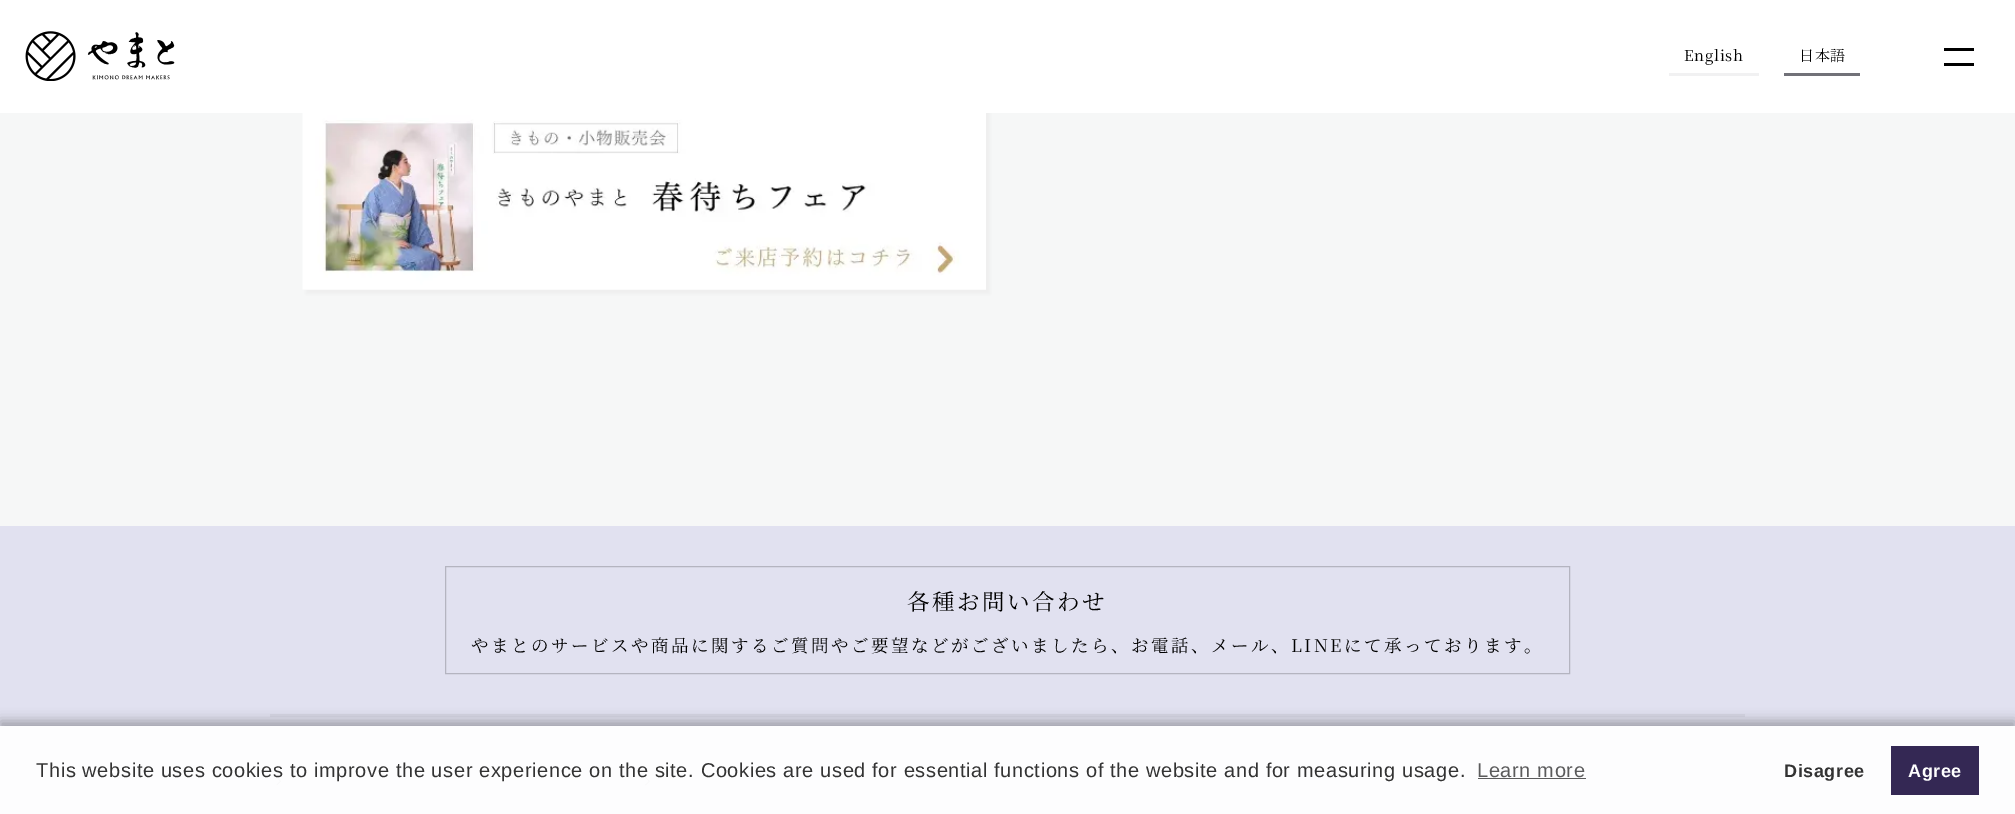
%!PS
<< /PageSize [2015 814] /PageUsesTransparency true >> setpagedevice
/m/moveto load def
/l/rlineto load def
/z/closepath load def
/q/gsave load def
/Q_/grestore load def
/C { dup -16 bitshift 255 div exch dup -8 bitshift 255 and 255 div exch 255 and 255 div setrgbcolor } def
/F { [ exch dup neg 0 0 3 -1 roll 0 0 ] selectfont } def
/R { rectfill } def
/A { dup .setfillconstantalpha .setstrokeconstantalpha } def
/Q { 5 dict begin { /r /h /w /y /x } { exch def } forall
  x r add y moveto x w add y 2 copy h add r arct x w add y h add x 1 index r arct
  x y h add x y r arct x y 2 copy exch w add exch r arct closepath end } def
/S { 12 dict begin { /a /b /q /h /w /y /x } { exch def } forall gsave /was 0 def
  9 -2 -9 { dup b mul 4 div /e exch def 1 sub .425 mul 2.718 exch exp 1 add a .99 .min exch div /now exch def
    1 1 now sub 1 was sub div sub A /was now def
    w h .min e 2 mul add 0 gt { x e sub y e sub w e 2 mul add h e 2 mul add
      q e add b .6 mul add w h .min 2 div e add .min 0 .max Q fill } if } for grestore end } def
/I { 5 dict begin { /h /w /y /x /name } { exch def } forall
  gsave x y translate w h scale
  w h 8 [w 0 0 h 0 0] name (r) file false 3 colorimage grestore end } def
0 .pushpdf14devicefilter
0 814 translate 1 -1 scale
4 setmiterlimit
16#E1E1F0 C
0 0 2015 814 R
16#F6F7F7 C
0 113 2015 413 R
16#EEEEEE C
306 108 684 186 0 2 1 S
16#FFFFFF C
0 0 2015 113 R
(1.rgb) 25 31 150 50 I
16#F1F1F2 C
1669 73 90 3 R
/NotoSerifJP-Regular 15 F
16#000000 C
1684 61 m .62 0 (English) ashow
16#717178 C
1784 73 76 3 R
16#000000 C
1799 61 m .62 0 (日本語) ashow
1944 48 30 3 R
1944 63 30 3 R
(2.rgb) 302 113 684 177 I
16#D6D6E4 C
270 714 1475 3 R
16#B4B4C0 C
445.5 566.5 1124 107 rectstroke
/NotoSerifJP-Regular 22.5 F
16#000000 C
907 610 m 2.5 0 (各種お問い合わせ) ashow
/NotoSerifJP-Regular 17.5 F
471 652 m 2.5 0 (やまとのサービスや商品に関するご質問やご要望などがございましたら、お電話、メール、LINEにて承っております。) ashow
16#D6D6E4 C
270 795 344 3 R
(3.rgb) 276 777 6 9 I
639 795 344 3 R
(4.rgb) 645 777 5 9 I
1008 795 343 3 R
q
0 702 m 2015 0 l 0 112 l -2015 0 l z 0 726 m 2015 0 l 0 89 l -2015 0 l z eoclip newpath
16#000000 C
0 721 2015 89 0 6 .3 S
Q_
0.95 A
16#FFFFFF C
0 726 2015 88 R
/LiberationSans-Regular 20 F
1 A
16#333333 C
36 777 m .62 0 (This website uses cookies to improve the user experience on the site. Cookies are used for essential functions of the website and for measuring usage.) ashow
16#5B5B5C C
1477 777 m .62 0 (Learn more) ashow
0.8 A
16#333333 C
1478 778 108 1 R
/LiberationSans-Bold 18 F
1 A
1784 777 m .62 0 (Disagree) ashow
16#342854 C
1891 746 88 49 R
16#FFFFFF C
1908 777 m .62 0 (Agree) ashow
.poppdf14devicefilter showpage
